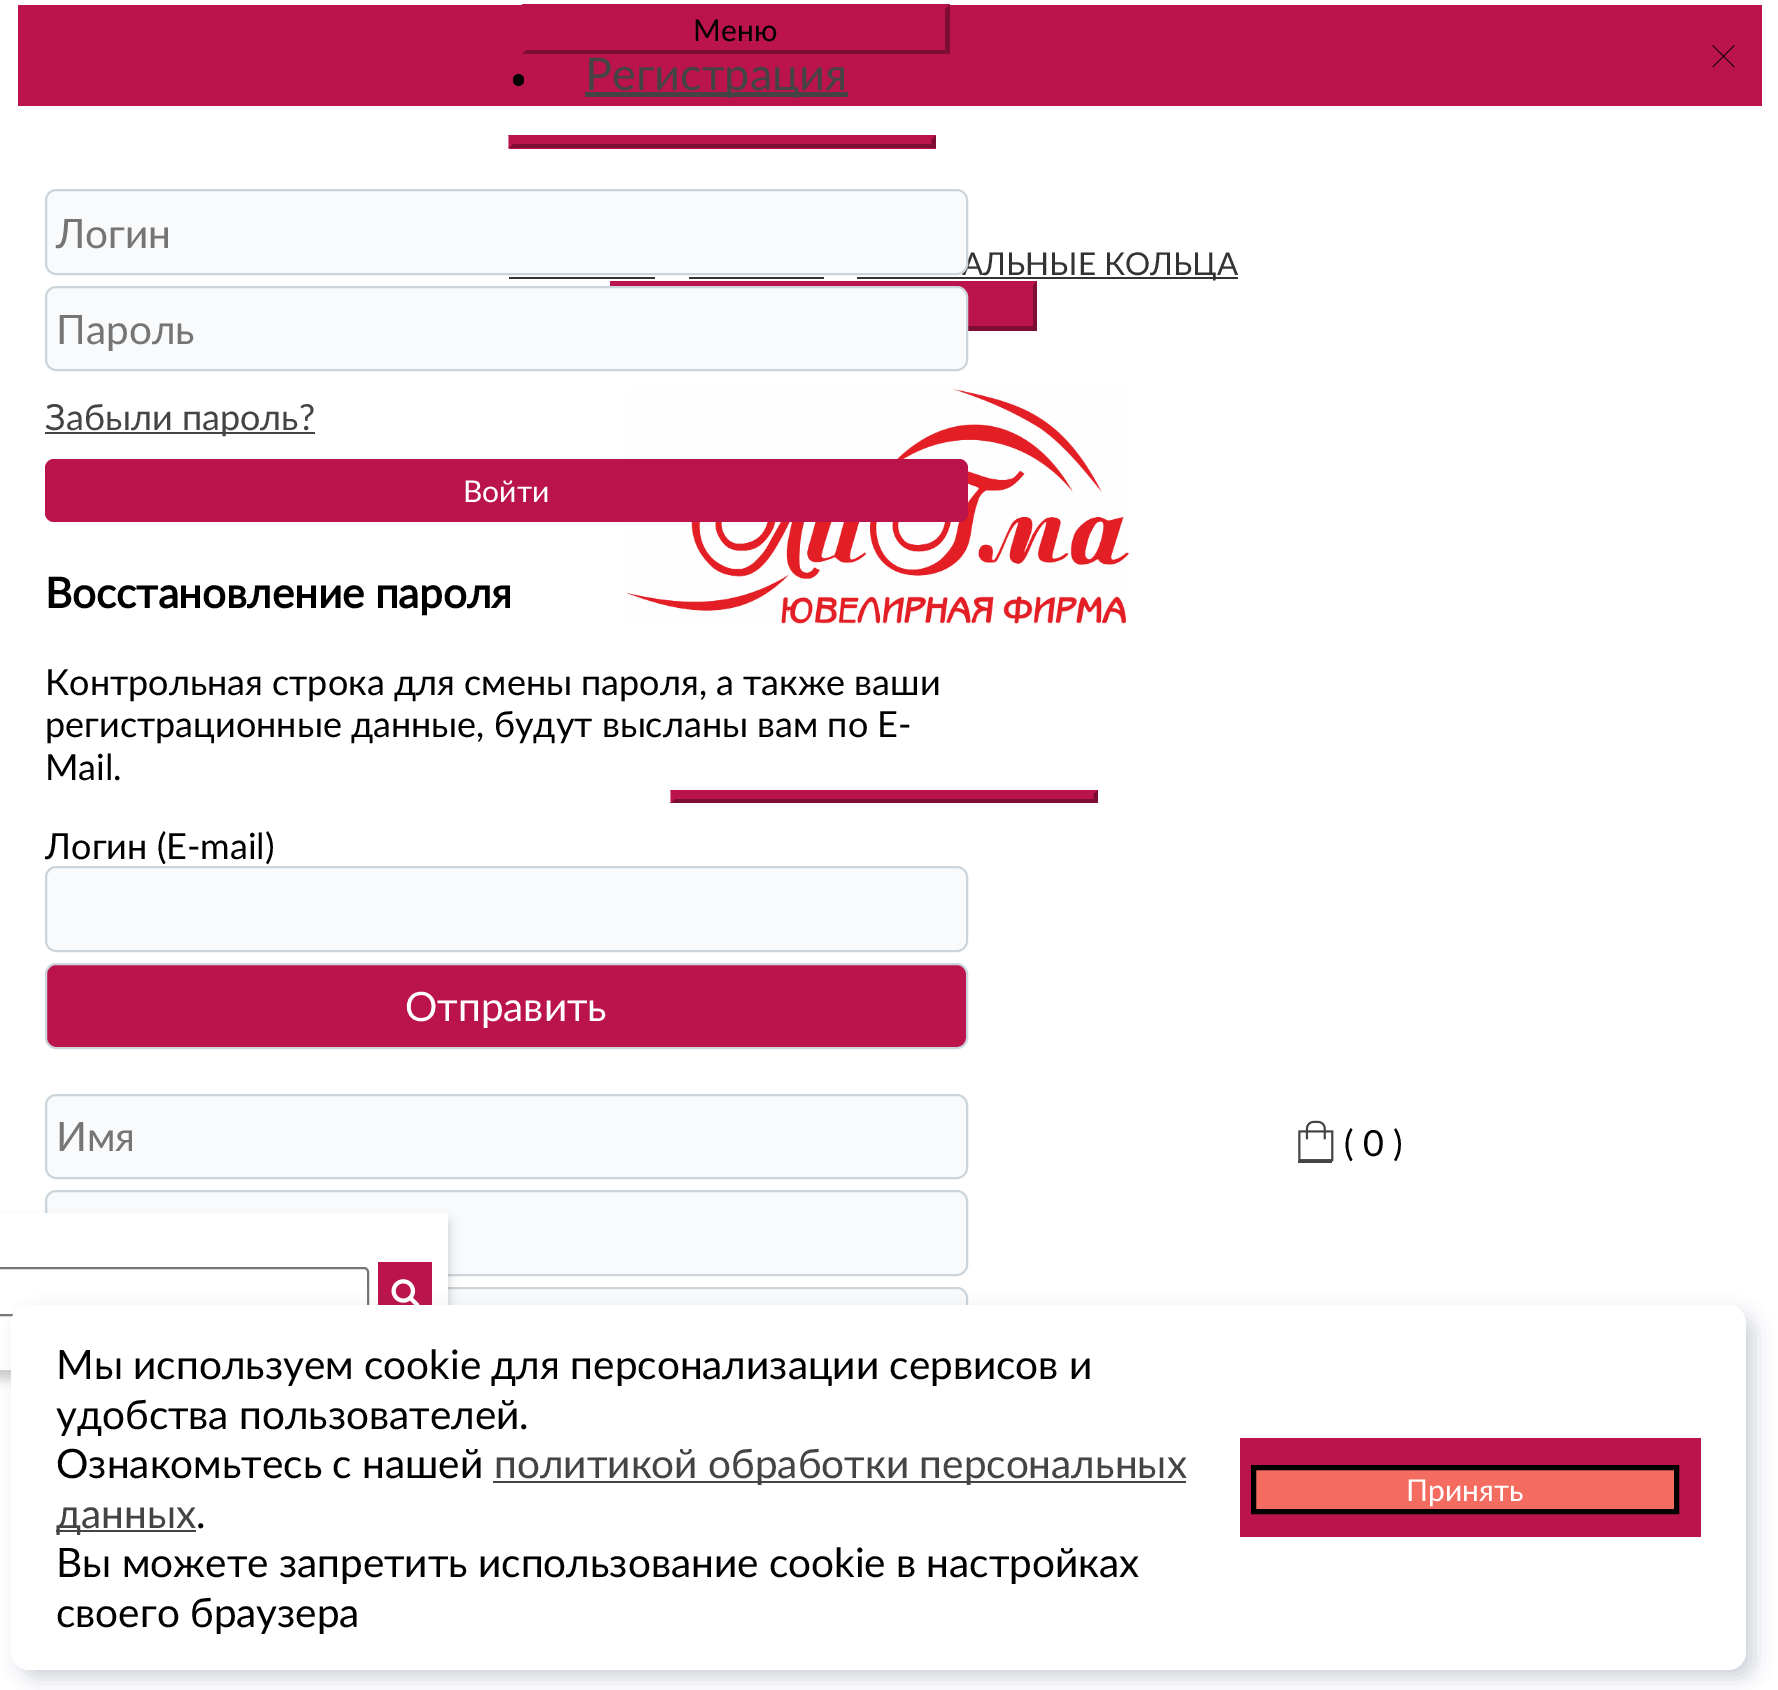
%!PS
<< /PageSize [1778 1690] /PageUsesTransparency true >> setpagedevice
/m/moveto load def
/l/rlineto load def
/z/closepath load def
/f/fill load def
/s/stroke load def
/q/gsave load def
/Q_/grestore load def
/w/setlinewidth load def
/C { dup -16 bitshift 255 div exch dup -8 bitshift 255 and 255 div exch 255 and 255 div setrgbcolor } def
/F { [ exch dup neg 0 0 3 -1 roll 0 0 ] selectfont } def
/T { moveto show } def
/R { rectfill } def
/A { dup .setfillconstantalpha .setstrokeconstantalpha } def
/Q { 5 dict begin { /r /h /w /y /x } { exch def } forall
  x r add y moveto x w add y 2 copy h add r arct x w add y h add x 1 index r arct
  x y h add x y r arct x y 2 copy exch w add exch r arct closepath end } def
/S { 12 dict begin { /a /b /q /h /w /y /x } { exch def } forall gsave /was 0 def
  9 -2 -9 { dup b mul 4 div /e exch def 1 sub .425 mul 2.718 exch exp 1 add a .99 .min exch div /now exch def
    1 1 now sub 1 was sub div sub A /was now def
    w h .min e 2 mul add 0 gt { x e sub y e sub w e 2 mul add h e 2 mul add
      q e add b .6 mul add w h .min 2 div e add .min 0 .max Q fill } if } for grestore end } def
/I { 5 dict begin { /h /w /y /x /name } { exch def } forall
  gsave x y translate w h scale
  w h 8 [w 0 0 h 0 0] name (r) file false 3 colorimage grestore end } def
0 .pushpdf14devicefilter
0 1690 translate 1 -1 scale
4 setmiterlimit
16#FFFFFF C
0 0 1778 1690 R
16#BB144D C
18 5 1744 101 R
16#000000 C
513 74 11 12 5.5 Q f
16#444444 C
585 92 263 5 R
/Lato-Regular 45 F
(Регистрация) 585 90 T
16#333333 C
857 277 381 2 R
/Lato-Regular 31.5 F
(АЛЬНЫЕ КОЛЬЦА) 962 275 T
16#F8FAFC C
46 190 921 84 10 Q q f Q_
16#CCD5DB C
2 w
s
/Lato-Regular 40.5 F
16#757575 C
(Логин) 56 248 T
16#BB144D C
610 281 427 50 R
16#7D0D33 C
1037 281 m 0 50 l -4 -5 l 0 -40 l z f
1037 331 m -427 0 l 4 -5 l 419 0 l z f
16#BB144D C
610 331 m 0 -50 l 4 5 l 0 40 l z f
16#F8FAFC C
46 287 921 83 10 Q q f Q_
16#CCD5DB C
s
16#757575 C
(Пароль) 56 344 T
16#444444 C
45 432 270 2 R
/Lato-Regular 36 F
(Забыли пароль?) 45 430 T
(2.rgb) 626 389 504 235 I
16#BB144D C
45 459 923 63 9 Q f
/Lato-Regular 30 F
16#FFFFFF C
(Войти) 463 502 T
/Lato-Bold 42.1 F
16#000000 C
(Восстановление пароля) 45 608 T
/Lato-Regular 36 F
(Контрольная строка для смены пароля, а также ваши) 45 695 T
(регистрационные данные, будут высланы вам по E-) 45 737 T
(Mail.) 45 780 T
(Логин \(E-mail\)) 45 859 T
16#F8FAFC C
46 867 921 84 10 Q q f Q_
16#CCD5DB C
s
16#BB144D C
46 964 921 84 10 Q q f Q_
16#CCD5DB C
s
/Lato-Regular 40.5 F
16#FFFFFF C
(Отправить) 405 1021 T
16#F8FAFC C
46 1095 921 83 10 Q q f Q_
16#CCD5DB C
s
16#757575 C
(Имя) 56 1151 T
16#F8FAFC C
46 1191 921 84 10 Q q f Q_
16#CCD5DB C
s
16#F8FAFC C
46 1288 921 84 10 Q q f Q_
16#CCD5DB C
s
(1.rgb) 1712 45 23 23 I
16#BB144D C
522 4 m 428 0 l -5 5 l -419 0 l z f
16#7D0D33 C
950 4 m 0 50 l -5 -4 l 0 -41 l z f
950 54 m -428 0 l 4 -4 l 419 0 l z f
16#BB144D C
522 54 m 0 -50 l 4 5 l 0 41 l z f
/Lato-Regular 30 F
16#000000 C
(Меню) 693 41 T
16#BB144D C
509 135 427 14 R
508 135 m 428 0 l -4 5 l -419 0 l z f
16#7D0D33 C
936 135 m 0 13.5 l -4.5 -4.5 l 0 -4.5 l z f
936 148 m -428 0 l 5 -4 l 419 0 l z f
16#BB144D C
508.5 148.5 m 0 -13.5 l 4.5 4.5 l 0 4.5 l z f
16#333333 C
509 277 146 2 R
689 277 135 2 R
16#BB144D C
671 790 427 13 R
670 790 m 428 0 l -4 4 l -419 0 l z f
16#7D0D33 C
1098 790 m 0 13 l -4.5 -4 l 0 -5 l z f
1098 803 m -428 0 l 5 -4 l 419 0 l z f
16#BB144D C
670.5 803 m 0 -13 l 4.5 4 l 0 5 l z f
16#444444 C
1298 1161 34 2 R
(3.rgb) 1298 1120 36 42 I
/Lato-Regular 36 F
16#000000 C
(\( 0 \)) 1344 1156 T
-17 1222 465 157 0 5.5 .2 S
16#FFFFFF C
0 1213 448 157 R
16#767676 C
-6 1268 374 47 4 Q s
16#BB144D C
378 1262 54 43 R
(4.rgb) 391 1279 29 26 I
16#223C50 C
20 1314 1735 365 18 9 .2 S
16#FFFFFF C
11 1305 1735 365 18 Q f
/Lato-Regular 40.5 F
16#000000 C
(Мы используем cookie для персонализации сервисов и) 56 1379 T
(удобства пользователей.) 56 1429 T
(Ознакомьтесь с нашей) 56 1478 T
16#444444 C
493 1481 693 2 R
(политикой обработки персональных) 494 1478 T
56 1530 140 2 R
(данных) 56 1528 T
16#000000 C
(.) 196 1528 T
(Вы можете запретить использование cookie в настройках) 56 1577 T
(своего браузера) 56 1627 T
16#BB144D C
1240 1438 461 99 R
16#F46C60 C
1253.5 1467.5 m 423 0 l 0 44 l -423 0 l z q f Q_
16#000000 C
5 w
s
/Lato-Regular 30 F
16#FFFFFF C
(Принять) 1406 1501 T
.poppdf14devicefilter showpage
